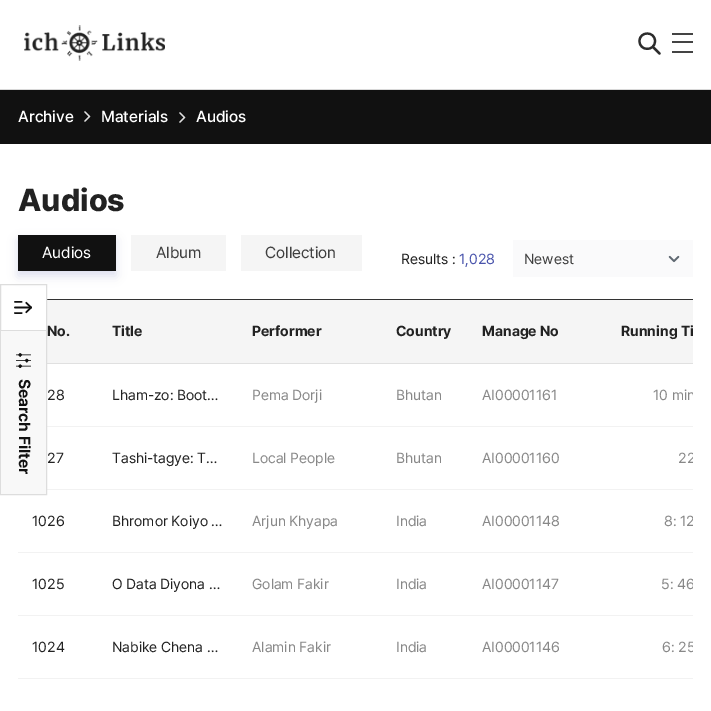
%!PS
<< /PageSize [711 711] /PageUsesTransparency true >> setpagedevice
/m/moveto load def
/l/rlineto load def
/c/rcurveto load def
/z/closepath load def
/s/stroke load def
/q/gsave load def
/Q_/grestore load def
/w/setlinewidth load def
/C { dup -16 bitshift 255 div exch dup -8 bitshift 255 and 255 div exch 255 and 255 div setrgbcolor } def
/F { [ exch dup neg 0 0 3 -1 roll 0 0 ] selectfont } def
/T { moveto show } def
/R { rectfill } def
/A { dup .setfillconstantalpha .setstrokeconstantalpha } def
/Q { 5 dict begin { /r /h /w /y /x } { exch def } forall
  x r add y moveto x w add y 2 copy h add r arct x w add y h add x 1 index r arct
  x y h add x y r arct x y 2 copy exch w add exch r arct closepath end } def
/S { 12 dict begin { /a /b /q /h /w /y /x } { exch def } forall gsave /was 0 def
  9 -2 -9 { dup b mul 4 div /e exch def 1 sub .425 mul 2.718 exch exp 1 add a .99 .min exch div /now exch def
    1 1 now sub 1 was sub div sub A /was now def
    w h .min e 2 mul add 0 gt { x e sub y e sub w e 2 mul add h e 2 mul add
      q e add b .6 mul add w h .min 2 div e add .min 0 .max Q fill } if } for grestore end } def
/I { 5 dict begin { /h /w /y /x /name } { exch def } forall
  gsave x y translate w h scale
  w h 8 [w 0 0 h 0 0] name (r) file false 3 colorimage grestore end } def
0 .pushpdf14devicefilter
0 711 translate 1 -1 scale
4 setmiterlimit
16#FFFFFF C
0 0 711 711 R
(1.rgb) 24 25 141 36 I
16#2D2D2D C
2.2 w
1 setlinecap
1 setlinejoin
639.5 41 m 0 10.5 15.5 10.5 15.5 0 c 0 -10 -15.5 -10 -15.5 0 c z 659.5 53.5 m -6.5 -6.5 l s
16#444444 C
672 33 21 2 R
672 41 21 2 R
672 51 21 2 R
16#D8D8D8 C
0 89 711 1 R
16#111111 C
0 90 711 54 R
/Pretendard-Medium 16 F
16#FFFFFF C
(Archive) 18 122 T
16#E0E0E0 C
1.3 w
85 121 m 4.5 -4.5 l -4.5 -4.5 l s
16#FFFFFF C
(Materials) 101 122 T
16#E0E0E0 C
180 122 m 4.5 -4.5 l -4.5 -4.5 l s
16#FFFFFF C
(Audios) 196 122 T
/Pretendard-ExtraBold 31.5 F
16#222222 C
(Audios) 18 211 T
16#4A56AA C
18 240 98 36 0 5 .2 S
16#111111 C
18 235 98 36 R
/Pretendard-Regular 16 F
16#FFFFFF C
(Audios) 42 258 T
16#F5F5F5 C
131 235 95 36 R
16#404040 C
(Album) 156 258 T
16#F5F5F5 C
241 235 121 36 R
16#404040 C
(Collection) 265 258 T
/Pretendard-Regular 14.5 F
16#222222 C
(Results :) 401 264 T
16#4A55AC C
(1,028) 459 264 T
16#FAFAFB C
513 240 180 37 R
(2.rgb) 668 255 12 8 I
16#404040 C
(Newest) 524 264 T
16#333333 C
47 299 646 1 R
16#F5F5F5 C
47 300 646 63 R
16#E0E0E0 C
47 363 646 1 R
/Pretendard-Bold 14.5 F
16#222222 C
(No.) 47 336 T
(Title) 112 336 T
(Performer) 252 336 T
(Country) 396 336 T
(Manage No) 482 336 T
(Running Ti) 621 336 T
/Pretendard-Regular 14.5 F
(28) 47 400 T
(Lham-zo: Boot…) 112 400 T
16#888888 C
(Pema Dorji) 252 400 T
(Bhutan) 396 400 T
(AI00001161) 482 400 T
16#F2F2F2 C
47 426 646 1 R
q
598 363 95 62 rectclip
16#888888 C
(10 min) 653 400 T
Q_
16#222222 C
(27) 47 463 T
(Tashi-tagye: T…) 112 463 T
16#888888 C
(Local People) 252 463 T
(Bhutan) 396 463 T
(AI00001160) 482 463 T
16#F2F2F2 C
47 489 646 1 R
q
598 426 95 62 rectclip
16#888888 C
(22) 678 463 T
Q_
16#222222 C
(1026) 32 526 T
(Bhromor Koiyo …) 112 526 T
16#888888 C
(Arjun Khyapa) 252 526 T
(India) 396 526 T
(AI00001148) 482 526 T
16#F2F2F2 C
18 552 675 1 R
q
598 489 95 62 rectclip
16#888888 C
(8: 12) 664 526 T
Q_
16#222222 C
(1025) 32 589 T
(O Data Diyona …) 112 589 T
16#888888 C
(Golam Fakir) 252 589 T
(India) 396 589 T
(AI00001147) 482 589 T
16#F2F2F2 C
18 615 675 1 R
q
598 552 95 62 rectclip
16#888888 C
(5: 46) 661 589 T
Q_
16#222222 C
(1024) 32 652 T
(Nabike Chena …) 112 652 T
16#888888 C
(Alamin Fakir) 252 652 T
(India) 396 652 T
(AI00001146) 482 652 T
16#F2F2F2 C
18 678 675 1 R
q
598 615 95 62 rectclip
16#888888 C
(6: 25) 662 652 T
Q_
16#DDDDDD C
1 w
0 setlinecap
0 setlinejoin
.5 284.5 46 210 rectstroke
(3.rgb) 14 301 18 13 I
16#F8F8F8 C
1 331 45 163 R
(4.rgb) 16 353 15 15 I
16#DDDDDD C
1 330 45 1 R
/Pretendard-Bold 16 F
16#111111 C
q 19 379 translate 90 rotate 0 0 m (Search Filter) show Q_
.poppdf14devicefilter showpage
